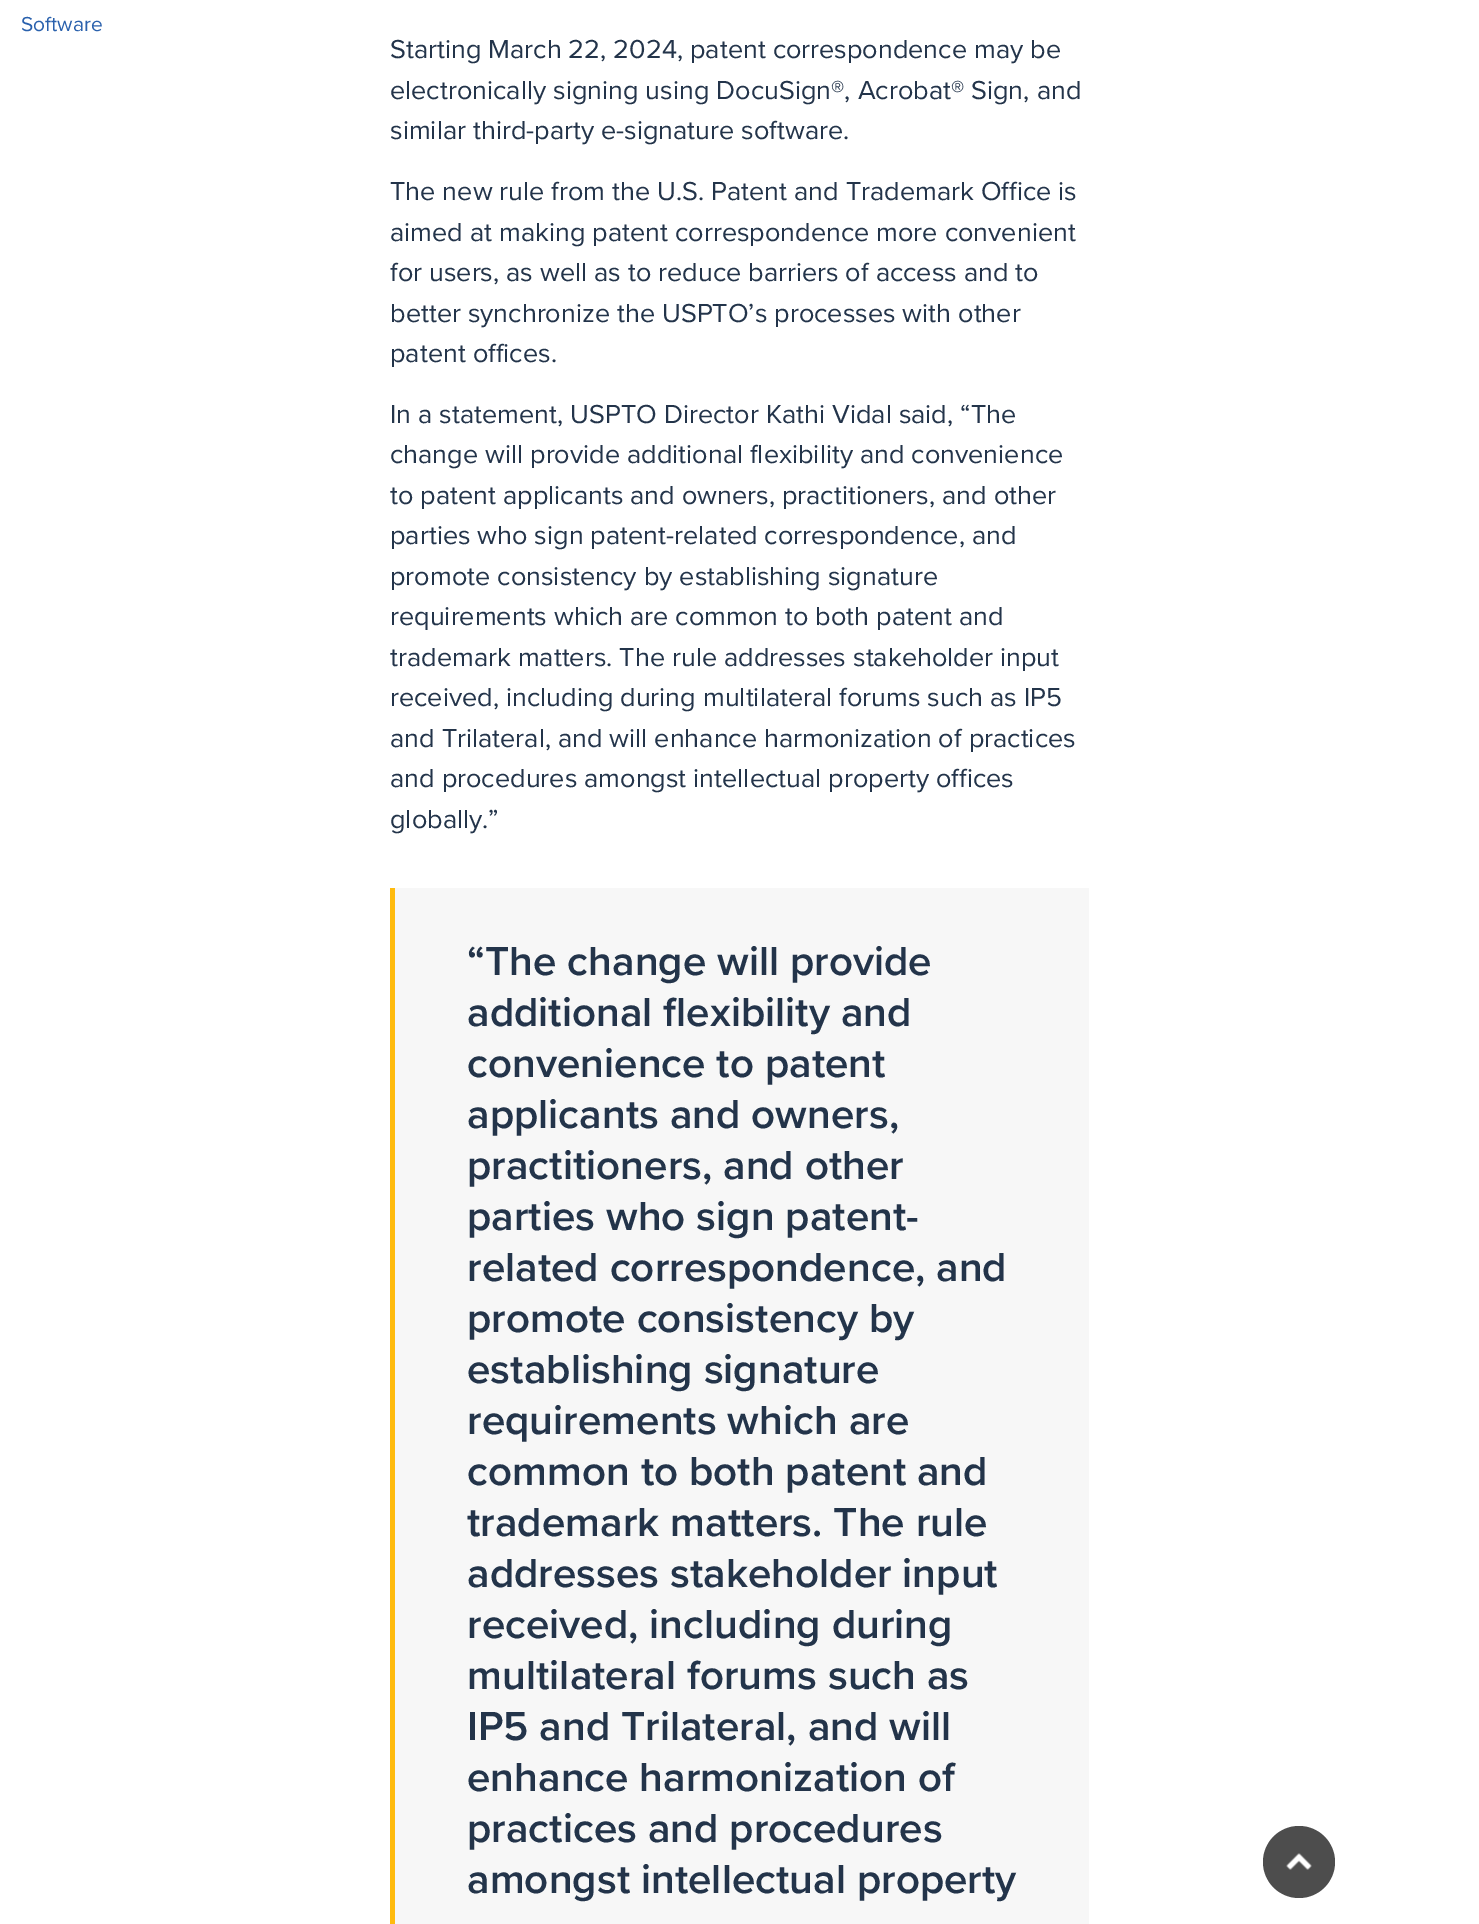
%!PS
<< /PageSize [1479 1924] >> setpagedevice
/f/fill load def
/C { dup -16 bitshift 255 div exch dup -8 bitshift 255 and 255 div exch 255 and 255 div setrgbcolor } def
/F { [ exch dup neg 0 0 3 -1 roll 0 0 ] selectfont } def
/T { moveto show } def
/R { rectfill } def
/O { newpath 0 360 arc closepath } def
/I { 5 dict begin { /h /w /y /x /name } { exch def } forall
  gsave x y translate w h scale
  w h 8 [w 0 0 h 0 0] name (r) file false 3 colorimage grestore end } def
0 1924 translate 1 -1 scale
4 setmiterlimit
16#FFFFFF C
0 0 1479 1924 R
/ProximaNova-Regular 21 F
16#2A61AD C
(Software) 21 31 T
/ProximaNova-Regular 27 F
16#23344A C
(Starting March 22, 2024, patent correspondence may be) 390 58 T
(electronically signing using DocuSign®, Acrobat® Sign, and) 390 99 T
(similar third-party e-signature software.) 390 139 T
(The new rule from the U.S. Patent and Trademark Office is) 390 200 T
(aimed at making patent correspondence more convenient) 390 241 T
(for users, as well as to reduce barriers of access and to) 390 281 T
(better synchronize the USPTO’s processes with other) 390 322 T
(patent offices.) 390 362 T
(In a statement, USPTO Director Kathi Vidal said, “The) 390 423 T
(change will provide additional flexibility and convenience) 390 463 T
(to patent applicants and owners, practitioners, and other) 390 504 T
(parties who sign patent-related correspondence, and) 390 544 T
(promote consistency by establishing signature) 390 585 T
(requirements which are common to both patent and) 390 625 T
(trademark matters. The rule addresses stakeholder input) 390 666 T
(received, including during multilateral forums such as IP5) 390 706 T
(and Trilateral, and will enhance harmonization of practices) 390 747 T
(and procedures amongst intellectual property offices) 390 787 T
(globally.”) 390 828 T
16#F7F7F7 C
395 888 694 1036 R
16#FFBB0E C
390 888 5 1036 R
/ProximaNova-SemiBold 42 F
16#23344A C
(“The change will provide) 467 975 T
(additional flexibility and) 467 1026 T
(convenience to patent) 467 1077 T
(applicants and owners,) 467 1128 T
(practitioners, and other) 467 1179 T
(parties who sign patent-) 467 1230 T
(related correspondence, and) 467 1281 T
(promote consistency by) 467 1332 T
(establishing signature) 467 1383 T
(requirements which are) 467 1434 T
(common to both patent and) 467 1485 T
(trademark matters. The rule) 467 1536 T
(addresses stakeholder input) 467 1587 T
(received, including during) 467 1638 T
(multilateral forums such as) 467 1689 T
(IP5 and Trilateral, and will) 467 1740 T
(enhance harmonization of) 467 1791 T
(practices and procedures) 467 1842 T
(amongst intellectual property) 467 1893 T
16#4D4D4D C
1299 1862 36 O f
(1.rgb) 1286 1853 26 17 I
showpage
